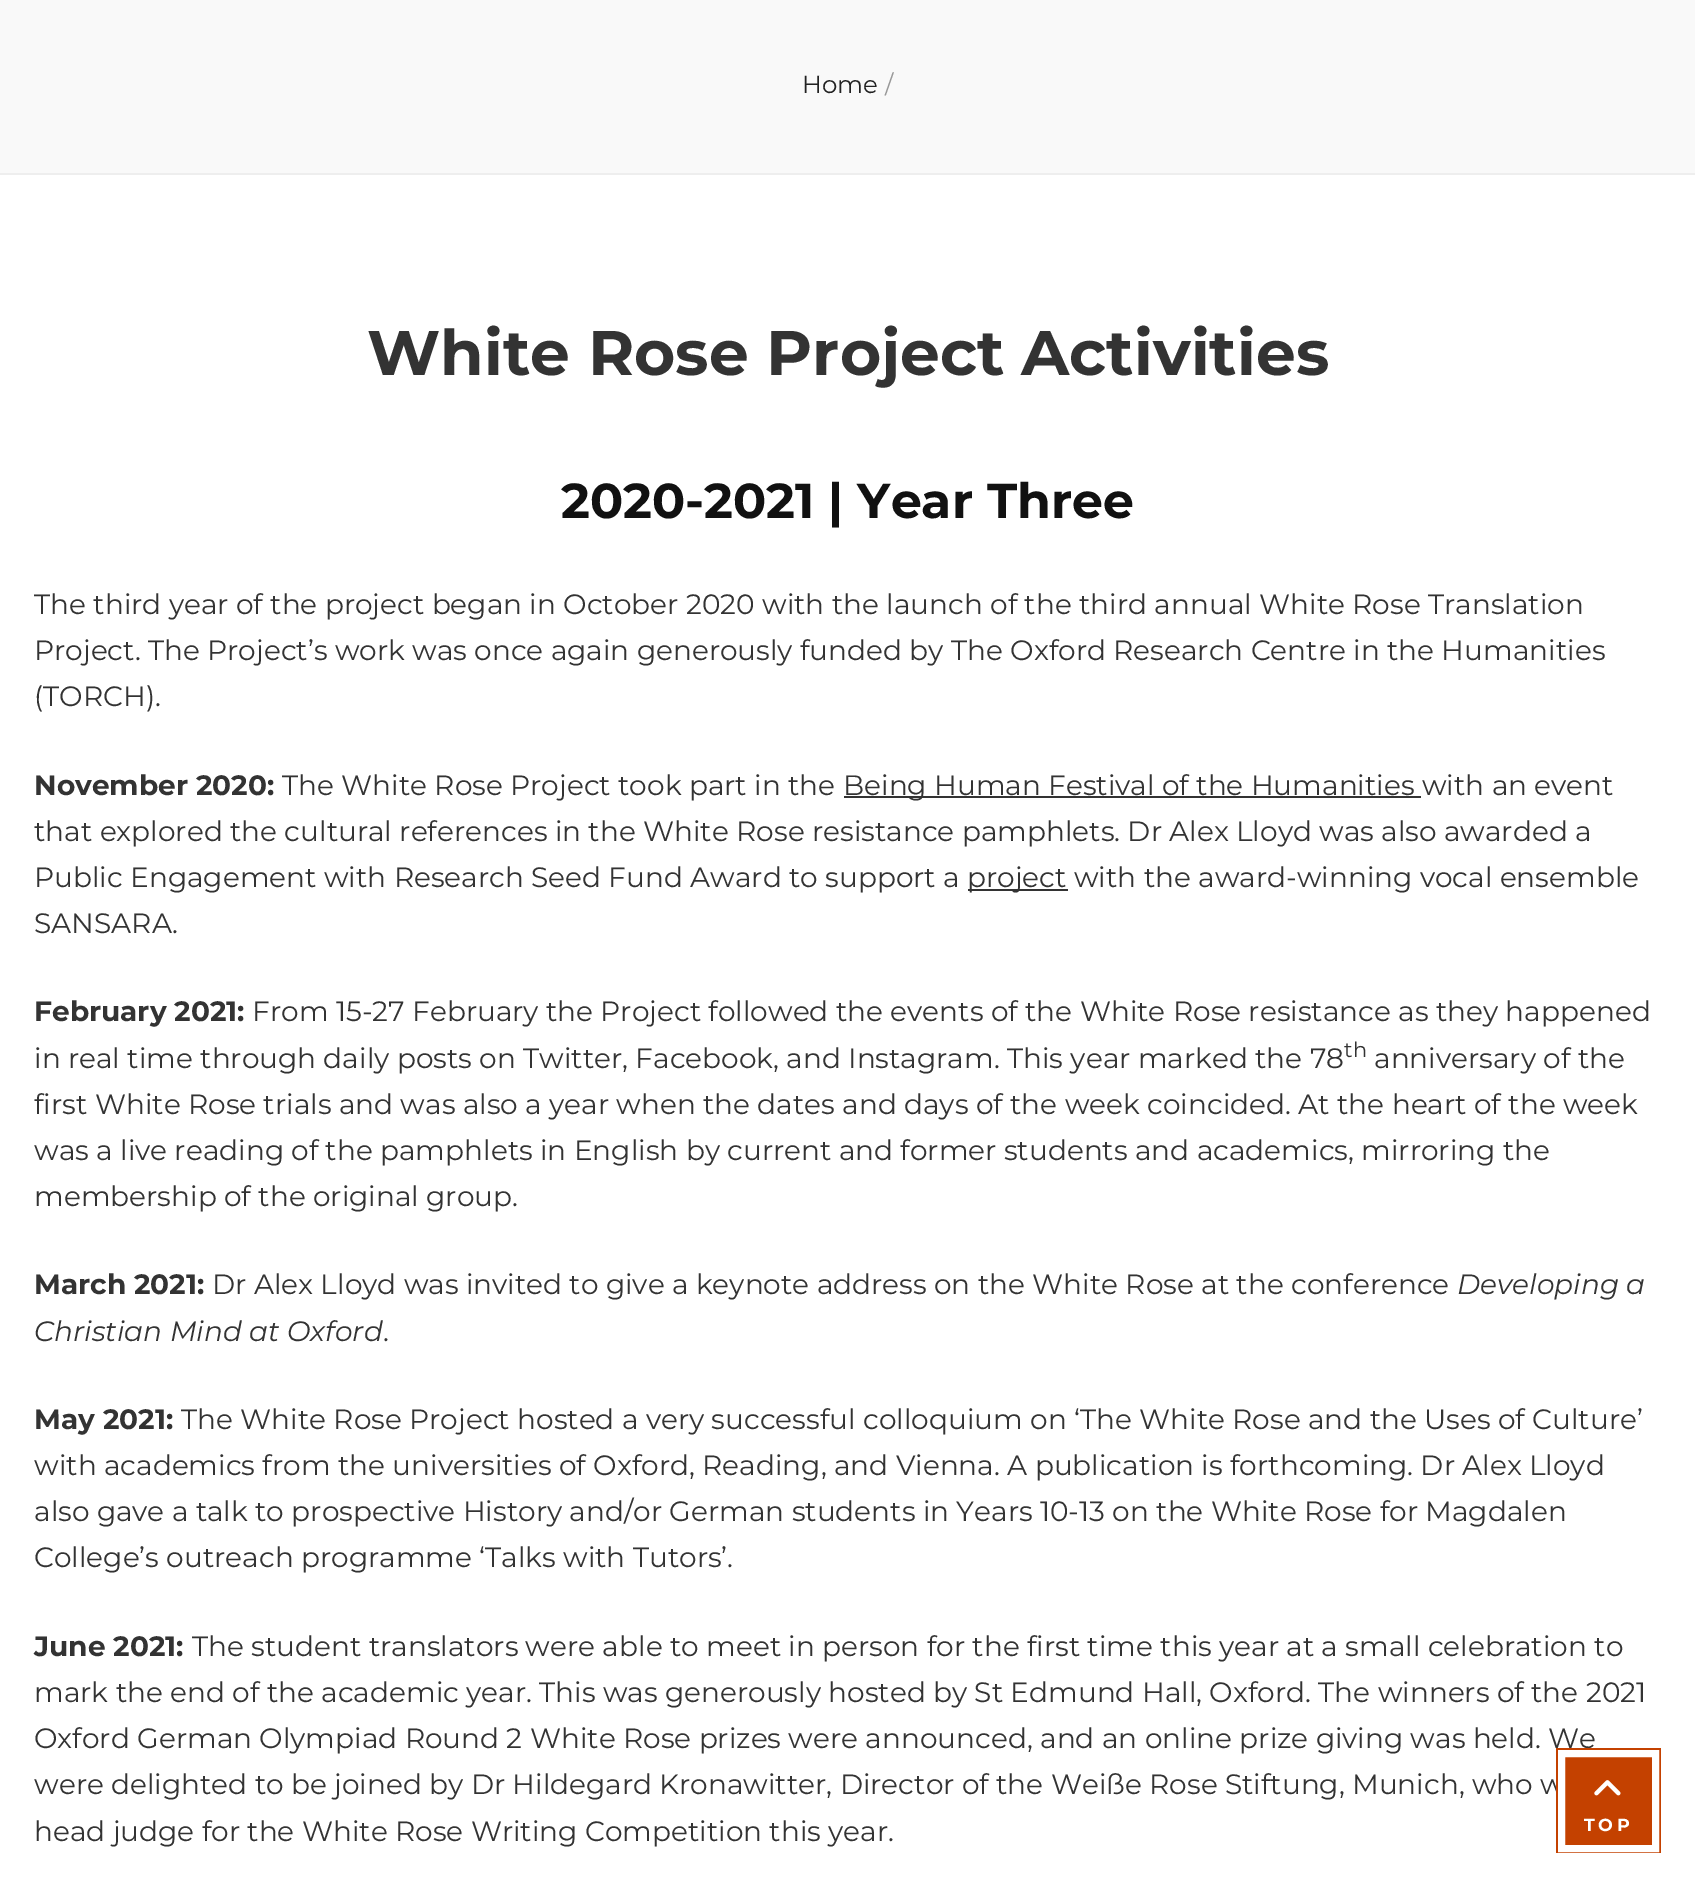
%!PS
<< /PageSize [1695 1888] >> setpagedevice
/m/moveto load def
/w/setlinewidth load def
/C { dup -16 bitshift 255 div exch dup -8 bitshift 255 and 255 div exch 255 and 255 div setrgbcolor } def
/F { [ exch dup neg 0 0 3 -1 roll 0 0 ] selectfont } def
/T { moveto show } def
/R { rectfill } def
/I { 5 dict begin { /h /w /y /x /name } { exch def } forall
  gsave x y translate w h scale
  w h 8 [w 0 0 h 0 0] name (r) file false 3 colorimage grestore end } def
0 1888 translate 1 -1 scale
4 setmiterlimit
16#FFFFFF C
0 0 1695 1888 R
16#F9F9F9 C
0 0 1695 173 R
16#EEEEEE C
0 173 1695 2 R
/Montserrat-Regular 24.5 F
16#222222 C
(Home) 802 93 T
16#999999 C
(/) 885 93 T
/Montserrat-Bold 63 F
16#333333 C
(White Rose Project) 367 375 T
(Activities) 1021 375 T
/Montserrat-Bold 49 F
16#111111 C
(2020-2021 | Year Three) 561 518 T
/Montserrat-Regular 28 F
16#333333 C
(The third year of the project began in October 2020 with the launch of the third annual White Rose Translation) 34 614 T
(Project. The Project’s work was once again generously funded by The Oxford Research Centre in the Humanities) 34 660 T
(\(TORCH\).) 34 706 T
/Montserrat-Bold 28 F
(November 2020:) 34 795 T
/Montserrat-Regular 28 F
(The White Rose Project took part in the) 282 795 T
844 796 577 2 R
(Being Human Festival of the Humanities with an event) 843 795 T
(that explored the cultural references in the White Rose resistance pamphlets. Dr Alex Lloyd was also awarded a) 34 841 T
(Public Engagement with Research Seed Fund Award to support a) 34 887 T
968 889 100 2 R
(project with the award-winning vocal ensemble) 967 887 T
(SANSARA.) 34 933 T
/Montserrat-Bold 28 F
(February 2021:) 34 1021 T
/Montserrat-Regular 28 F
(From 15-27 February the Project followed the events of the White Rose resistance as they happened) 252 1021 T
(in real time through daily posts on Twitter, Facebook, and Instagram. This year marked the 78) 34 1068 T
/Montserrat-Regular 21 F
(th) 1344 1057 T
/Montserrat-Regular 28 F
(anniversary of the) 1374 1068 T
(first White Rose trials and was also a year when the dates and days of the week coincided. At the heart of the week) 34 1114 T
(was a live reading of the pamphlets in English by current and former students and academics, mirroring the) 34 1160 T
(membership of the original group.) 34 1206 T
/Montserrat-Bold 28 F
(March 2021:) 34 1294 T
/Montserrat-Regular 28 F
(Dr Alex Lloyd was invited to give a keynote address on the White Rose at the conference) 212 1294 T
/Montserrat-Italic 28 F
(Developing a) 1457 1294 T
(Christian Mind at Oxford) 34 1341 T
/Montserrat-Regular 28 F
(.) 383 1341 T
/Montserrat-Bold 28 F
(May 2021:) 34 1429 T
/Montserrat-Regular 28 F
(The White Rose Project hosted a very successful colloquium on ‘The White Rose and the Uses of Culture’) 181 1429 T
(with academics from the universities of Oxford, Reading, and Vienna. A publication is forthcoming. Dr Alex Lloyd) 34 1475 T
(also gave a talk to prospective History and/or German students in Years 10-13 on the White Rose for Magdalen) 34 1521 T
(College’s outreach programme ‘Talks with Tutors’.) 34 1567 T
/Montserrat-Bold 28 F
(June 2021:) 34 1656 T
/Montserrat-Regular 28 F
(The student translators were able to meet in person for the first time this year at a small celebration to) 192 1656 T
(mark the end of the academic year. This was generously hosted by St Edmund Hall, Oxford. The winners of the 2021) 34 1702 T
(Oxford German Olympiad Round 2 White Rose prizes were announced, and an online prize giving was held. We) 34 1748 T
(were delighted to be joined by Dr Hildegard Kronawitter, Director of the Weiße Rose Stiftung, Munich, who w) 34 1794 T
(head judge for the White Rose Writing Competition this year.) 34 1841 T
16#C44100 C
1556 1748 105 105 R
(1.rgb) 1594 1780 27 16 I
16#FFFFFF C
7 w
1561.5 1753.5 94 95 rectstroke
/Montserrat-Bold 17.5 F
1584 1831 m 3.5 0 (TOP) ashow
showpage
